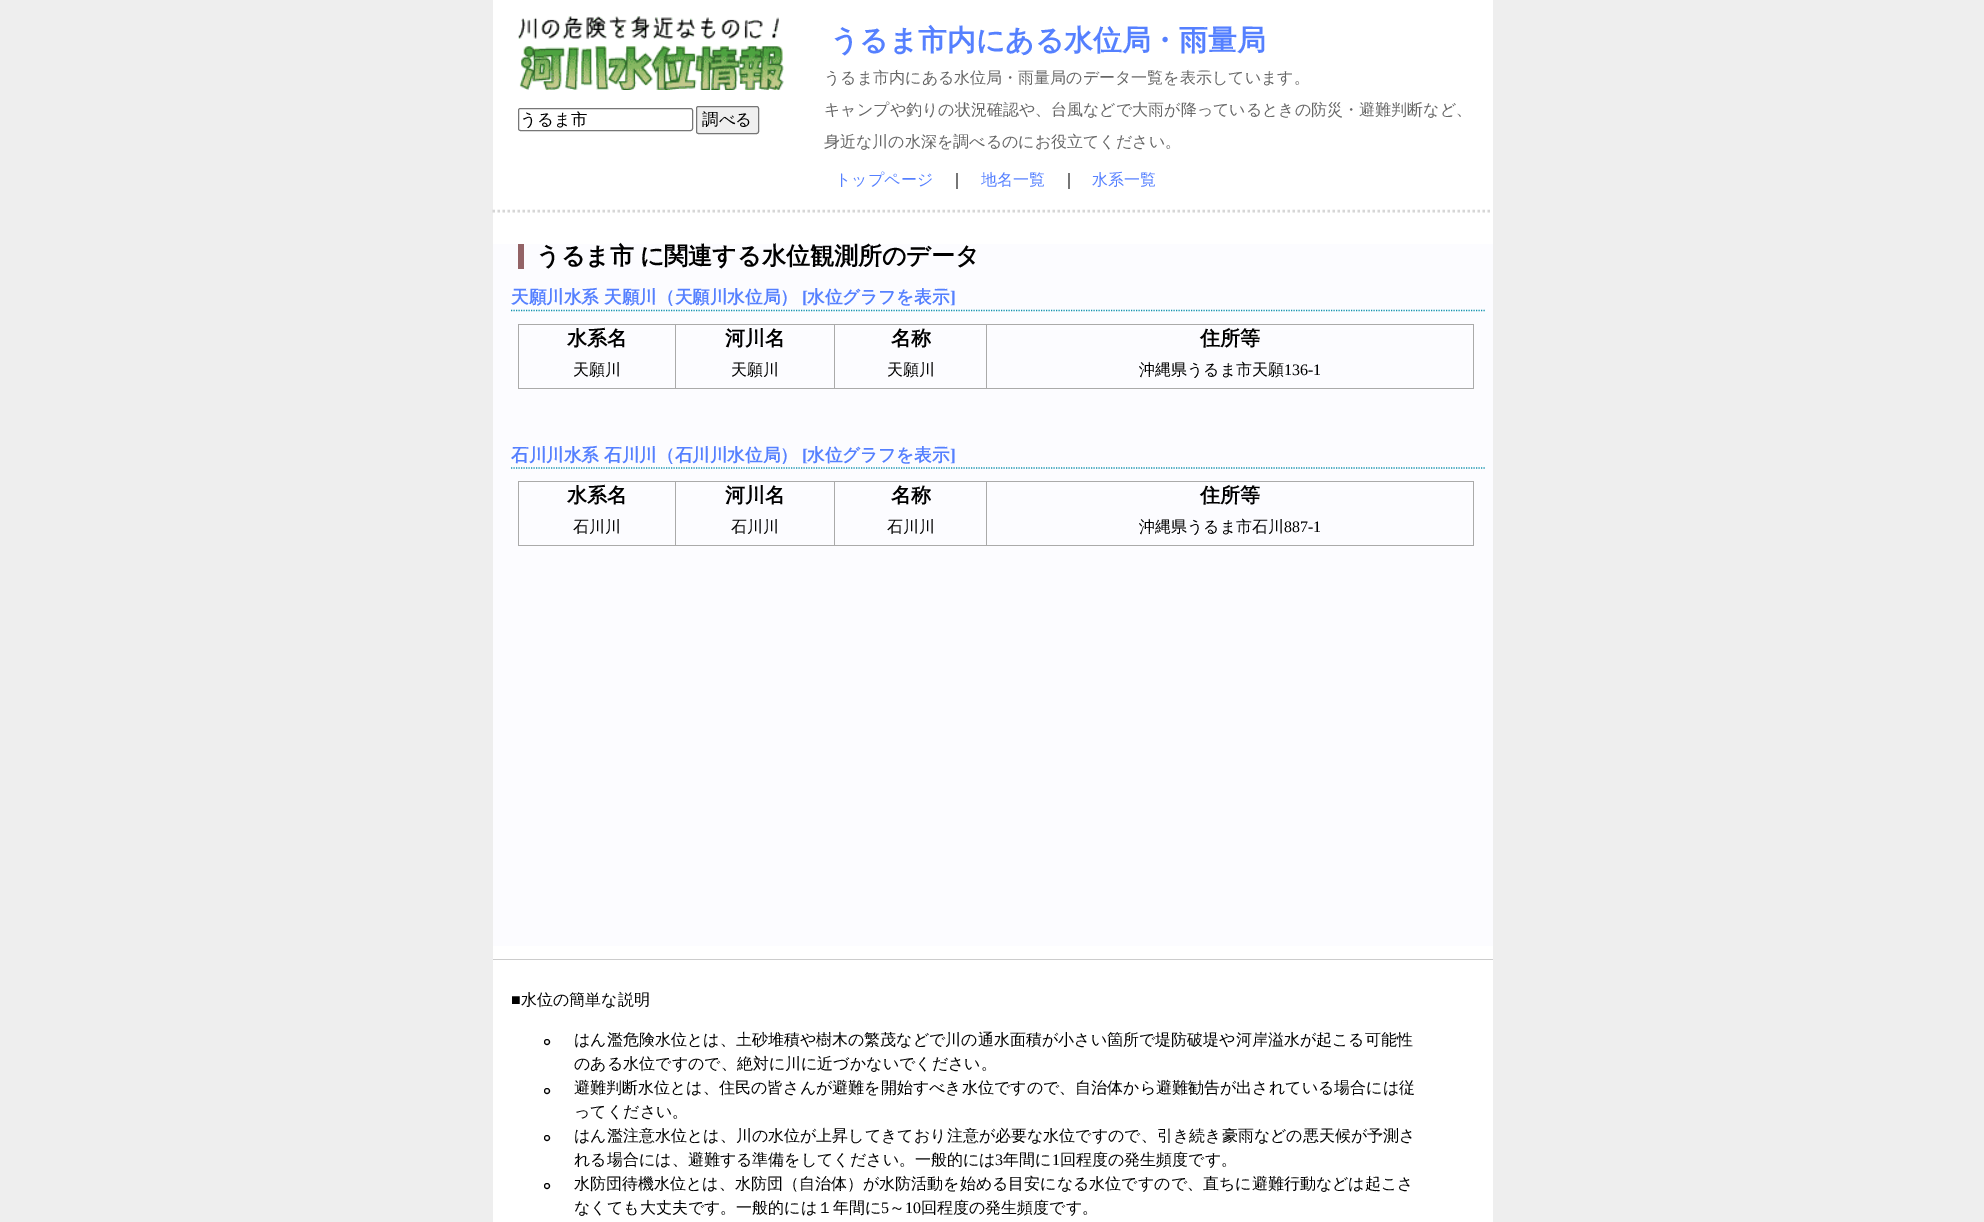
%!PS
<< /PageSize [1984 1222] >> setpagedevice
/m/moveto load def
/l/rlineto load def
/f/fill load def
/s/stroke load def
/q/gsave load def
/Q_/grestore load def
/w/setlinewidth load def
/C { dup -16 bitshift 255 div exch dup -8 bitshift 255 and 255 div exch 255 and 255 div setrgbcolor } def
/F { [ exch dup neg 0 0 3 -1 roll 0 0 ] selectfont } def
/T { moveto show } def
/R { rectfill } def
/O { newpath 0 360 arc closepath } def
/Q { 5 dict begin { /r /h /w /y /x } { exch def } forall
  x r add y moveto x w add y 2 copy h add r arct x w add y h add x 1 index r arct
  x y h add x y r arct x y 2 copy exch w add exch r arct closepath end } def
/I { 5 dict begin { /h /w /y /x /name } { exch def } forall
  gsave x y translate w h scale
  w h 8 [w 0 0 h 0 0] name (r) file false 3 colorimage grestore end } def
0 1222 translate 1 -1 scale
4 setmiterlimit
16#EEEEEE C
0 0 1984 1222 R
16#FFFFFF C
493 0 1000 1222 R
16#D6D6D6 C
2.5 w
[2.5 2.5] 0 setdash
492.5 211 m 1000 0 l s
(1.rgb) 518 16 266 74 I
16#767676 C
1 w
[] 0 setdash
518.5 108.5 174 22 2 Q s
/WenQuanYiZenHei-Medium 16.5 F
16#000000 C
(うるま市) 520 125 T
16#EFEFEF C
696.5 106.5 62 27 2 Q q f Q_
16#767676 C
s
16#000000 C
(調べる) 702 125 T
/WenQuanYiZenHei-Bold 28.75 F
16#5580FF C
(うるま市内にある水位局・雨量局) 830 50 T
/WenQuanYiZenHei-Medium 16 F
16#666666 C
(うるま市内にある水位局・雨量局のデータ一覧を表示しています。) 824 83 T
(キャンプや釣りの状況確認や、台風などで大雨が降っているときの防災・避難判断など、) 824 115 T
(身近な川の水深を調べるのにお役立てください。) 824 147 T
16#5580FF C
(トップページ) 835 185 T
16#000000 C
(｜) 949 185 T
16#5580FF C
(地名一覧) 981 185 T
16#000000 C
(｜) 1061 185 T
16#5580FF C
(水系一覧) 1092 185 T
16#FCFCFF C
493 244 1000 702 R
16#936366 C
518 244 6 25 R
/WenQuanYiZenHei-Bold 24 F
16#000000 C
536 264 m -1 0 32 (うるま市 に関連する水位観測所のデータ) widthshow
16#1193AE C
1.2 w
[1.25 1.25] 0 setdash
511 310.5 m 975 0 l s
/WenQuanYiZenHei-Bold 17.6 F
16#5580FF C
(天願川水系 天願川（天願川水位局）) 511 303 T
/LiberationSerif-Bold 17.6 F
([) 802 303 T
/WenQuanYiZenHei-Bold 17.6 F
(水位グラフを表示) 807 303 T
/LiberationSerif-Bold 17.6 F
(]) 950 303 T
16#AAAAAA C
518 324 956 1 R
1473 324 1 65 R
518 388 956 1 R
518 324 1 65 R
/WenQuanYiZenHei-Bold 20 F
16#000000 C
(水系名) 567 345 T
(河川名) 725 345 T
(名称) 891 345 T
(住所等) 1200 345 T
/WenQuanYiZenHei-Medium 16 F
(天願川) 573 375 T
16#AAAAAA C
675 324 1 65 R
16#000000 C
(天願川) 731 375 T
16#AAAAAA C
834 324 1 65 R
16#000000 C
(天願川) 887 375 T
16#AAAAAA C
986 324 1 65 R
16#000000 C
(沖縄県うるま市天願) 1139 375 T
/LiberationSerif-Regular 16 F
(136-1) 1284 375 T
16#1193AE C
511 468 m 975 0 l s
/WenQuanYiZenHei-Bold 17.6 F
16#5580FF C
(石川川水系 石川川（石川川水位局）) 511 461 T
/LiberationSerif-Bold 17.6 F
([) 802 461 T
/WenQuanYiZenHei-Bold 17.6 F
(水位グラフを表示) 807 461 T
/LiberationSerif-Bold 17.6 F
(]) 950 461 T
16#AAAAAA C
518 481 956 1 R
1473 481 1 65 R
518 545 956 1 R
518 481 1 65 R
/WenQuanYiZenHei-Bold 20 F
16#000000 C
(水系名) 567 502 T
(河川名) 725 502 T
(名称) 891 502 T
(住所等) 1200 502 T
/WenQuanYiZenHei-Medium 16 F
(石川川) 573 532 T
16#AAAAAA C
675 481 1 65 R
16#000000 C
(石川川) 731 532 T
16#AAAAAA C
834 481 1 65 R
16#000000 C
(石川川) 887 532 T
16#AAAAAA C
986 481 1 65 R
16#000000 C
(沖縄県うるま市石川) 1139 532 T
/LiberationSerif-Regular 16 F
(887-1) 1284 532 T
16#CCCCCC C
493 959 1000 1 R
16#000000 C
(■) 511 1005 T
/WenQuanYiZenHei-Medium 16 F
(水位の簡単な説明) 521 1005 T
1 w
[] 0 setdash
547 1042 2.5 O s
(はん濫危険水位とは、土砂堆積や樹木の繁茂などで川の通水面積が小さい箇所で堤防破堤や河岸溢水が起こる可能性) 574 1045 T
(のある水位ですので、絶対に川に近づかないでください。) 574 1069 T
547 1091 2.5 O s
(避難判断水位とは、住民の皆さんが避難を開始すべき水位ですので、自治体から避難勧告が出されている場合には従) 574 1093 T
(ってください。) 574 1117 T
547 1138 2.5 O s
(はん濫注意水位とは、川の水位が上昇してきており注意が必要な水位ですので、引き続き豪雨などの悪天候が予測さ) 574 1141 T
(れる場合には、避難する準備をしてください。一般的には) 574 1165 T
/LiberationSerif-Regular 16 F
(3) 995 1165 T
/WenQuanYiZenHei-Medium 16 F
(年間に) 1003 1165 T
/LiberationSerif-Regular 16 F
(1) 1052 1165 T
/WenQuanYiZenHei-Medium 16 F
(回程度の発生頻度です。) 1060 1165 T
547 1186 2.5 O s
(水防団待機水位とは、水防団（自治体）が水防活動を始める目安になる水位ですので、直ちに避難行動などは起こさ) 574 1189 T
(なくても大丈夫です。一般的には１年間に) 574 1213 T
/LiberationSerif-Regular 16 F
(5) 881 1213 T
/WenQuanYiZenHei-Medium 16 F
(～) 889 1213 T
/LiberationSerif-Regular 16 F
(10) 905 1213 T
/WenQuanYiZenHei-Medium 16 F
(回程度の発生頻度です。) 921 1213 T
showpage
